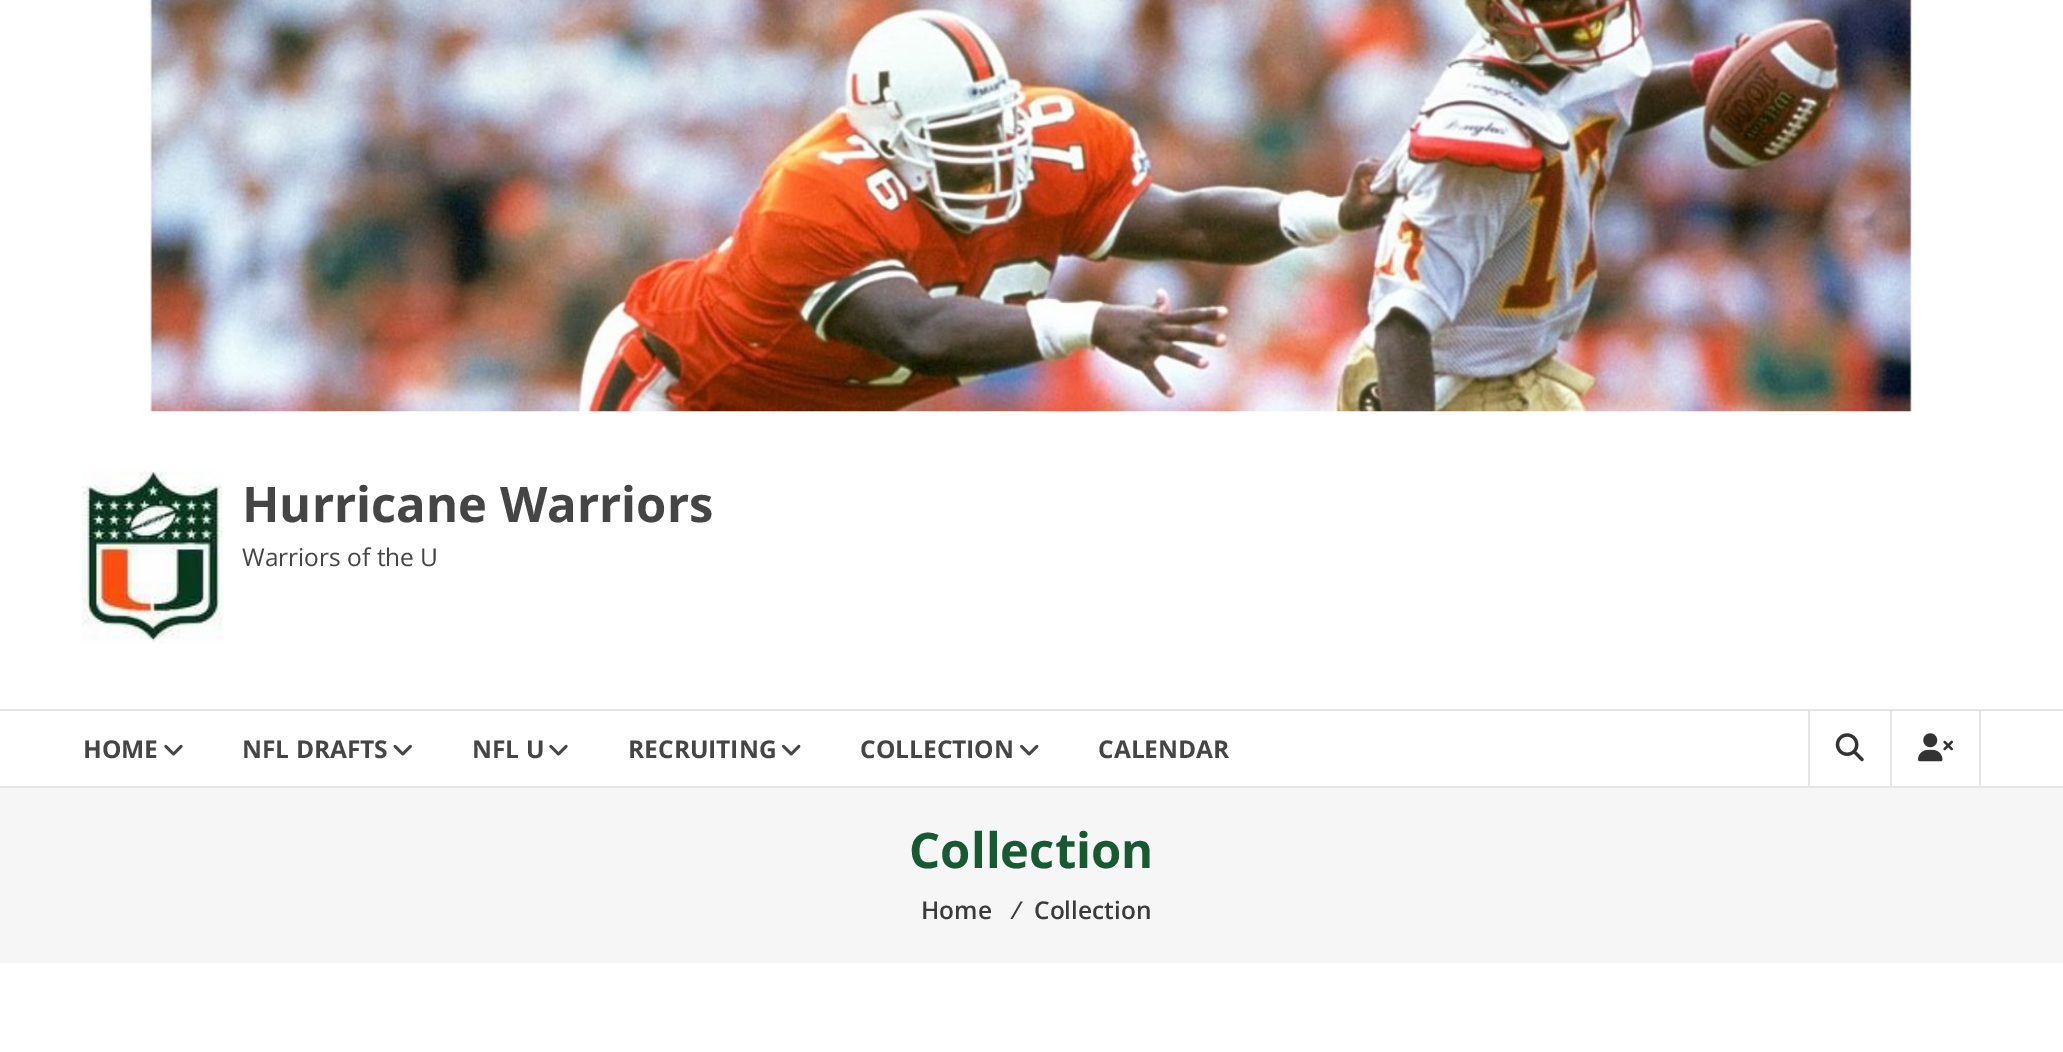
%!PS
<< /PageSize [2063 1052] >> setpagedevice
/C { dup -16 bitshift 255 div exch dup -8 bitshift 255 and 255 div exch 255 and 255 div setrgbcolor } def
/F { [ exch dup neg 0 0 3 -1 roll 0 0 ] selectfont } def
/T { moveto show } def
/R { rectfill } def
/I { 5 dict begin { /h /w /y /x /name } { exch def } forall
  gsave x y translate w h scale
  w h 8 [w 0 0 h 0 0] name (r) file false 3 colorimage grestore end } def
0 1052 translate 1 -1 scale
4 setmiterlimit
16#FFFFFF C
0 0 2063 1052 R
(1.rgb) 148 0 1767 412 I
(2.rgb) 82 470 142 174 I
/OpenSans-Bold 49 F
16#454545 C
(Hurricane Warriors) 242 522 T
/OpenSans-Regular 24.5 F
(Warriors of the U) 242 566 T
16#E5E5E5 C
0 709 2063 2 R
0 786 2063 2 R
/OpenSans-Bold 24.5 F
16#454545 C
(HOME) 83 758 T
(3.rgb) 164 744 19 12 I
(NFL DRAFTS) 242 758 T
(4.rgb) 393 744 19 12 I
(NFL U) 472 758 T
(3.rgb) 549 744 19 12 I
(RECRUITING) 628 758 T
(5.rgb) 782 744 19 12 I
(COLLECTION) 860 758 T
(5.rgb) 1020 744 19 12 I
(CALENDAR) 1098 758 T
16#E5E5E5 C
1808 711 2 75 R
(6.rgb) 1835 733 29 29 I
1979 711 2 75 R
1890 711 2 75 R
(7.rgb) 1918 733 35 29 I
16#F6F6F6 C
0 788 2063 175 R
/OpenSans-Bold 49 F
16#165933 C
(Collection) 909 868 T
/OpenSans-SemiBold 24.5 F
16#3B3B3B C
(Home) 921 919 T
(⁄) 1015 919 T
(Collection) 1034 919 T
showpage
